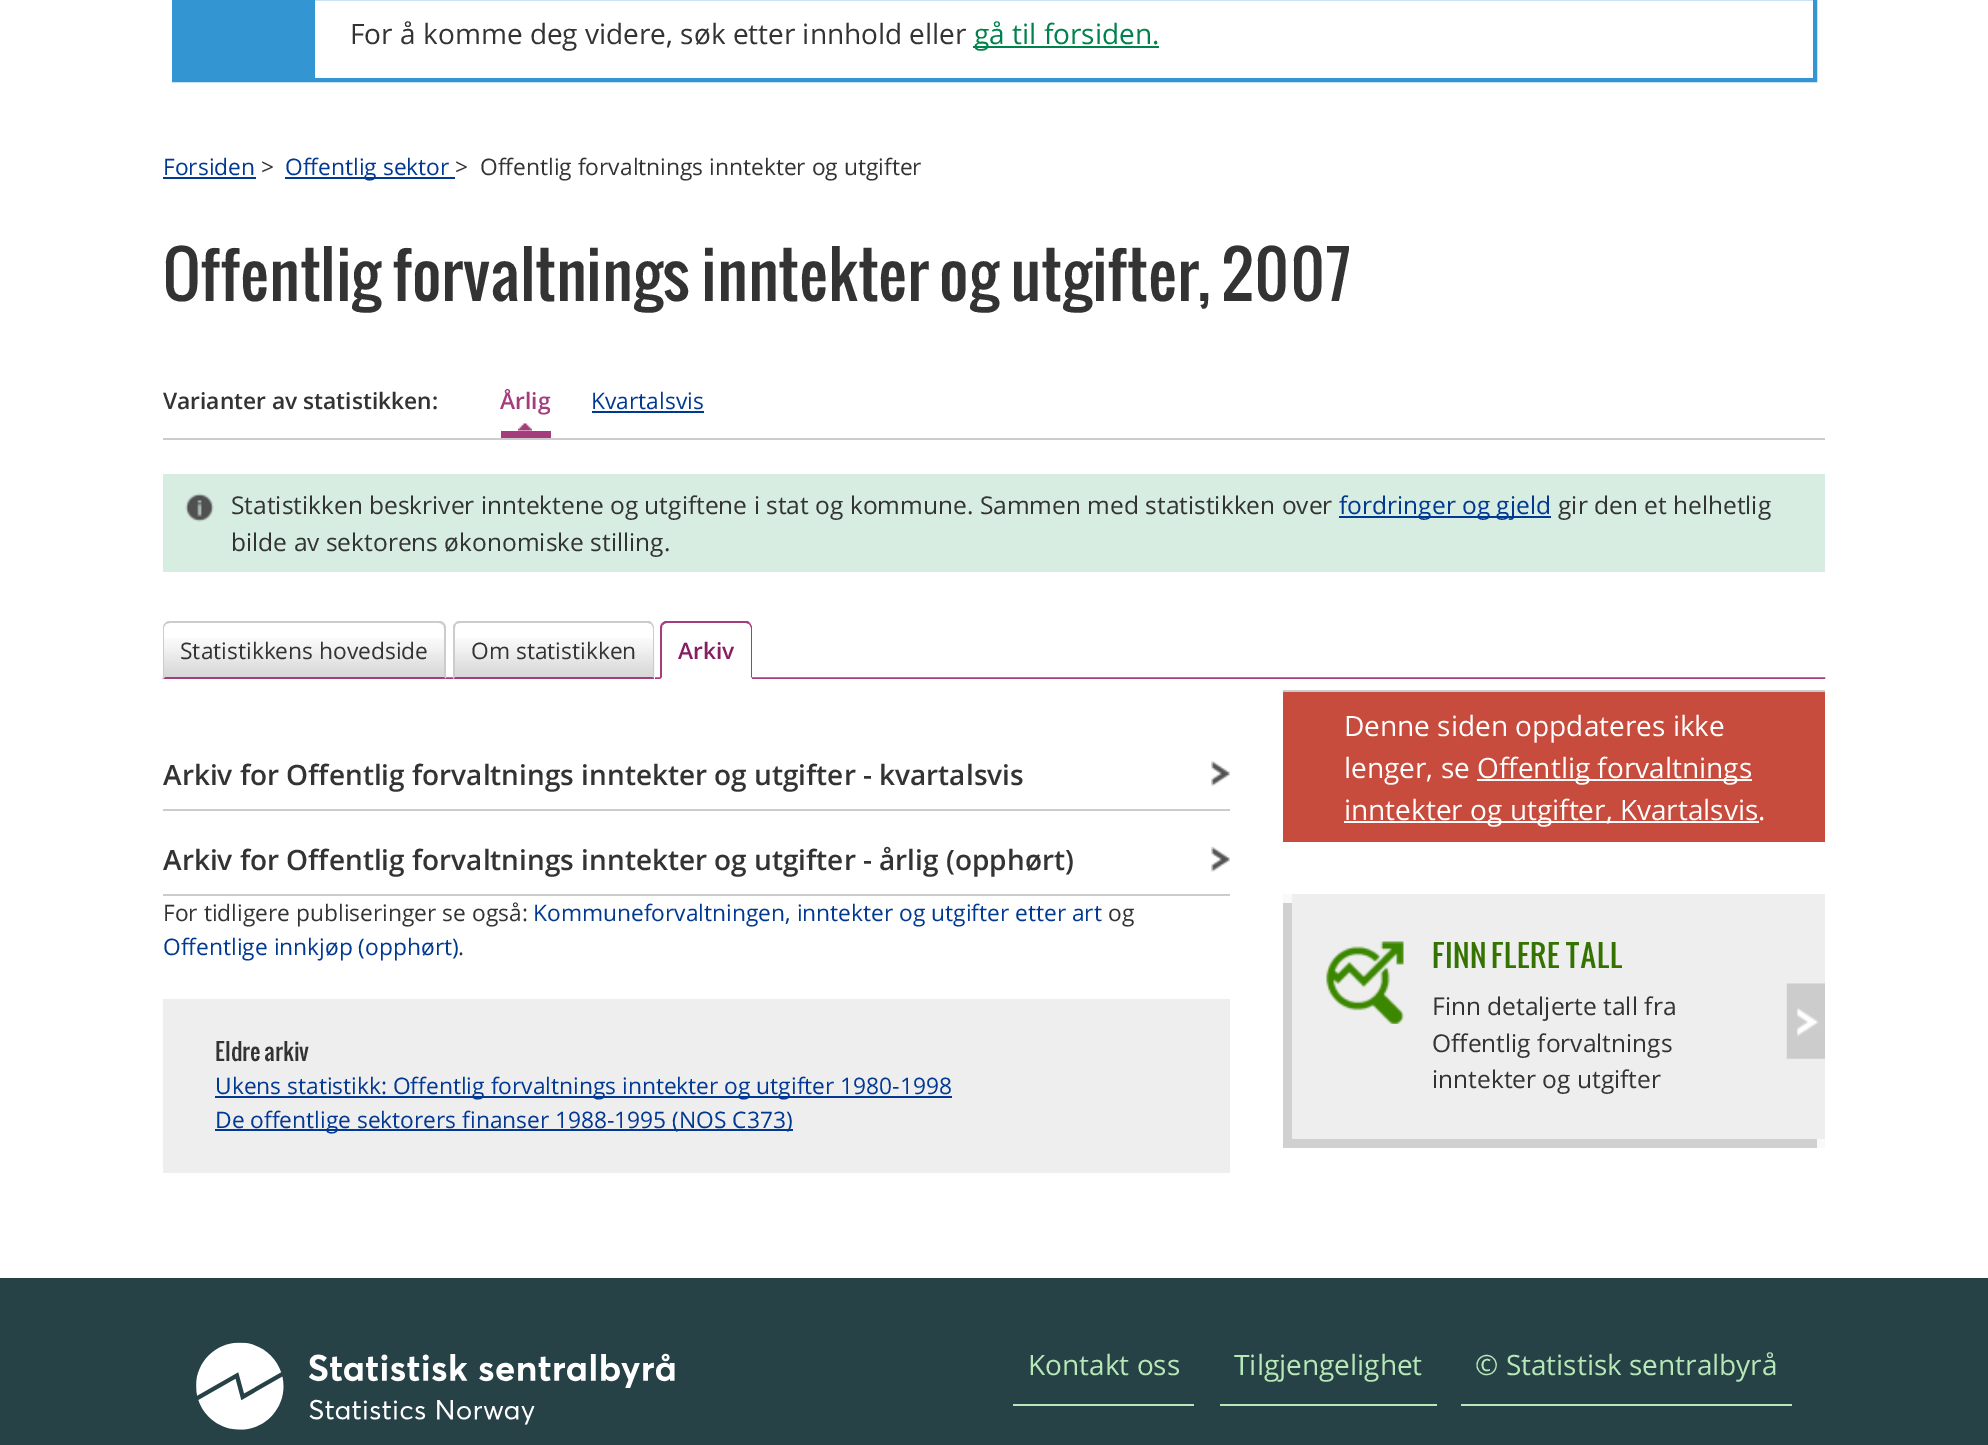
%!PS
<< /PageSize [1988 1445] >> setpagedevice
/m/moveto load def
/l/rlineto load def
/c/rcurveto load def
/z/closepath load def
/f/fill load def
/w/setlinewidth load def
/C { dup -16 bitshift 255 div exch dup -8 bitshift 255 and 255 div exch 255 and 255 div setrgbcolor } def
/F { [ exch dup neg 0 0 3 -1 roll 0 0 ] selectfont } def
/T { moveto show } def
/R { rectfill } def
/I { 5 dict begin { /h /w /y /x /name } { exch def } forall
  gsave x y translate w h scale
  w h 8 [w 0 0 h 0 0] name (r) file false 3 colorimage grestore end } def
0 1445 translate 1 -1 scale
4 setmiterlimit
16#FFFFFF C
0 0 1988 1445 R
16#3396D2 C
4 w
174 -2 1641 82 rectstroke
176 0 139 78 R
/OpenSans-Regular 28 F
16#333333 C
(For å komme deg videre, søk etter innhold eller) 350 44 T
16#00824D C
973 46 186 2 R
(gå til forsiden.) 974 44 T
/OpenSans-Regular 22.75 F
16#003892 C
(Forsiden) 163 175 T
163 177 93 2 R
16#333333 C
(>) 261 175 T
16#003892 C
285 177 170 2 R
(Offentlig sektor) 285 175 T
16#333333 C
(>) 455 175 T
(Offentlig forvaltnings inntekter og utgifter) 480 175 T
/Oswald-Regular 63 F
(Offentlig forvaltnings inntekter og utgifter,) 163 301 T
(2007) 1221 301 T
16#CCCCCC C
163 438 1662 2 R
/OpenSans-SemiBold 22.75 F
16#333333 C
(Varianter av statistikken:) 163 409 T
(1.rgb) 518 423 14 8 I
16#A53D7C C
501 431 50 7 R
(Årlig) 500 409 T
/OpenSans-Regular 22.75 F
16#003892 C
(Kvartalsvis) 591 409 T
592 411 112 2 R
16#D7EDE1 C
163 474 1662 98 R
(2.rgb) 185 493 29 29 I
/OpenSans-Regular 24.5 F
16#333333 C
(Statistikken beskriver inntektene og utgiftene i stat og kommune. Sammen med statistikken over) 231 514 T
16#003892 C
1339 516 212 2 R
(fordringer og gjeld) 1339 514 T
16#333333 C
(gir den et helhetlig) 1558 514 T
(bilde av sektorens økonomiske stilling.) 231 551 T
(3.rgb) 162 677 1664 2 I
16#FFFFFF C
170 621 m 269 0 l 4 0 7 3 7 7 c 0 51 l -283 0 l 0 -51 l 0 -4 3 -7 7 -7 c z f
(4.rgb) 164 638 281 40 I
16#CCCCCC C
170 623 m -2 0 -3 1 -4 1 c -1 -1 l 3 -2 l 273 0 l 3 2 l -1 2 l -1 -1 -2 -2 -4 -2 c z f
444 623 m 1 1 2 3 2 5 c 0 51 l -2 -2 l 0 -49 l 0 -1 0 -3 -1 -3 c z f
16#A53D7C C
163 679 m 283 0 l -2 -2 l -279 0 l z f
16#CCCCCC C
163 679 m 0 -51 l 0 -2 1 -4 2 -5 c 1 1 l -2 3 l 0 50 l 1 0 l z f
/OpenSans-Regular 22.75 F
16#333333 C
(Statistikkens hovedside) 180 659 T
16#FFFFFF C
460 621 m 188 0 l 4 0 7 3 7 7 c 0 51 l -202 0 l 0 -51 l 0 -4 3 -7 7 -7 c z f
(5.rgb) 454 638 201 40 I
16#CCCCCC C
460 623 m -2 0 -3 1 -4 1 c -1 -1 l 3 -2 l 192 0 l 2 2 l -1 1 l -3 -1 l z f
652 623 m 1 2 2 3 2 5 c 0 50 l -2 -1 l 1 0 l 0 -49 l 0 -1 -1 -3 -2 -4 c z f
16#A53D7C C
453 679 m 201 0 l 0 -1 l -2 -1 l -197 0 l z f
16#CCCCCC C
453 679 m 0 -53 l 2 -3 l 1 1 l 0 1 -1 2 -1 4 c 0 49 l z f
16#333333 C
(Om statistikken) 471 659 T
16#A53D7C C
667 623 m -2 0 -3 1 -4 2 c -1 -2 l 3 -2 l 83 0 l 2 2 l -1 1 l -3 -1 l z f
750 623 m 1 2 2 3 2 5 c 0 50 l -2 -1 l 1 0 l 0 -49 l 0 -1 -1 -3 -2 -4 c z f
16#FFFFFF C
660 679 m 92 0 l 0 -1 l -2 -1 l -88 0 l z f
16#A53D7C C
660 679 m 0 -51 l 0 -2 1 -4 2 -5 c 1 2 l -1 0 -1 2 -1 3 c 0 49 l z f
/OpenSans-SemiBold 22.75 F
16#861F62 C
(Arkiv) 678 659 T
(6.rgb) 1211 761 19 25 I
16#CCCCCC C
163 809 1067 2 R
/OpenSans-SemiBold 28 F
16#333333 C
(Arkiv for Offentlig forvaltnings inntekter og utgifter - kvartalsvis) 163 785 T
(7.rgb) 1211 847 19 25 I
16#CCCCCC C
163 894 1067 2 R
16#333333 C
(Arkiv for Offentlig forvaltnings inntekter og utgifter - årlig \(opphørt\)) 163 870 T
/OpenSans-Regular 22.75 F
(For tidligere publiseringer se også:) 163 921 T
16#003892 C
(Kommuneforvaltningen, inntekter og utgifter etter art) 533 921 T
16#333333 C
(og) 1108 921 T
16#003892 C
(Offentlige innkjøp \(opphørt\)) 163 955 T
16#333333 C
(.) 458 955 T
16#EEEEEE C
163 999 1067 174 R
/Oswald-Regular 22.75 F
16#333333 C
(Eldre arkiv) 215 1061 T
16#003892 C
215 1096 737 2 R
/OpenSans-Regular 22.75 F
(Ukens statistikk: Offentlig forvaltnings inntekter og utgifter 1980-1998) 215 1094 T
215 1129 578 2 R
(De offentlige sektorers finanser 1988-1995 \(NOS C373\)) 215 1128 T
16#C84C3D C
1283 692 542 150 R
16#CCCCCC C
1283 690 542 2 R
/OpenSans-Regular 28 F
16#FFFFFF C
(Denne siden oppdateres ikke) 1344 736 T
(lenger, se) 1344 778 T
1477 779 275 2 R
(Offentlig forvaltnings) 1477 778 T
1344 821 415 2 R
(inntekter og utgifter, Kvartalsvis.) 1344 820 T
16#F9F9F9 C
1283 894 542 254 R
16#EEEEEE C
1292 894 533 245 R
(8.rgb) 1326 941 499 118 I
16#D0D0D0 C
1283 903 9 236 R
/Oswald-Regular 29.75 F
16#347301 C
(FINN FLERE TALL) 1432 968 T
/OpenSans-Regular 24.5 F
16#333333 C
(Finn detaljerte tall fra) 1432 1015 T
(Offentlig forvaltnings) 1432 1052 T
(inntekter og utgifter) 1432 1088 T
16#D0D0D0 C
1283 1139 534 9 R
16#274247 C
0 1278 1988 167 R
(9.rgb) 196 1342 479 88 I
16#B6E8B8 C
1013 1404 181 2 R
/OpenSans-Regular 28 F
(Kontakt oss) 1028 1375 T
1220 1404 217 2 R
(Tilgjengelighet) 1234 1375 T
1461 1404 331 2 R
(© Statistisk sentralbyrå) 1475 1375 T
showpage
